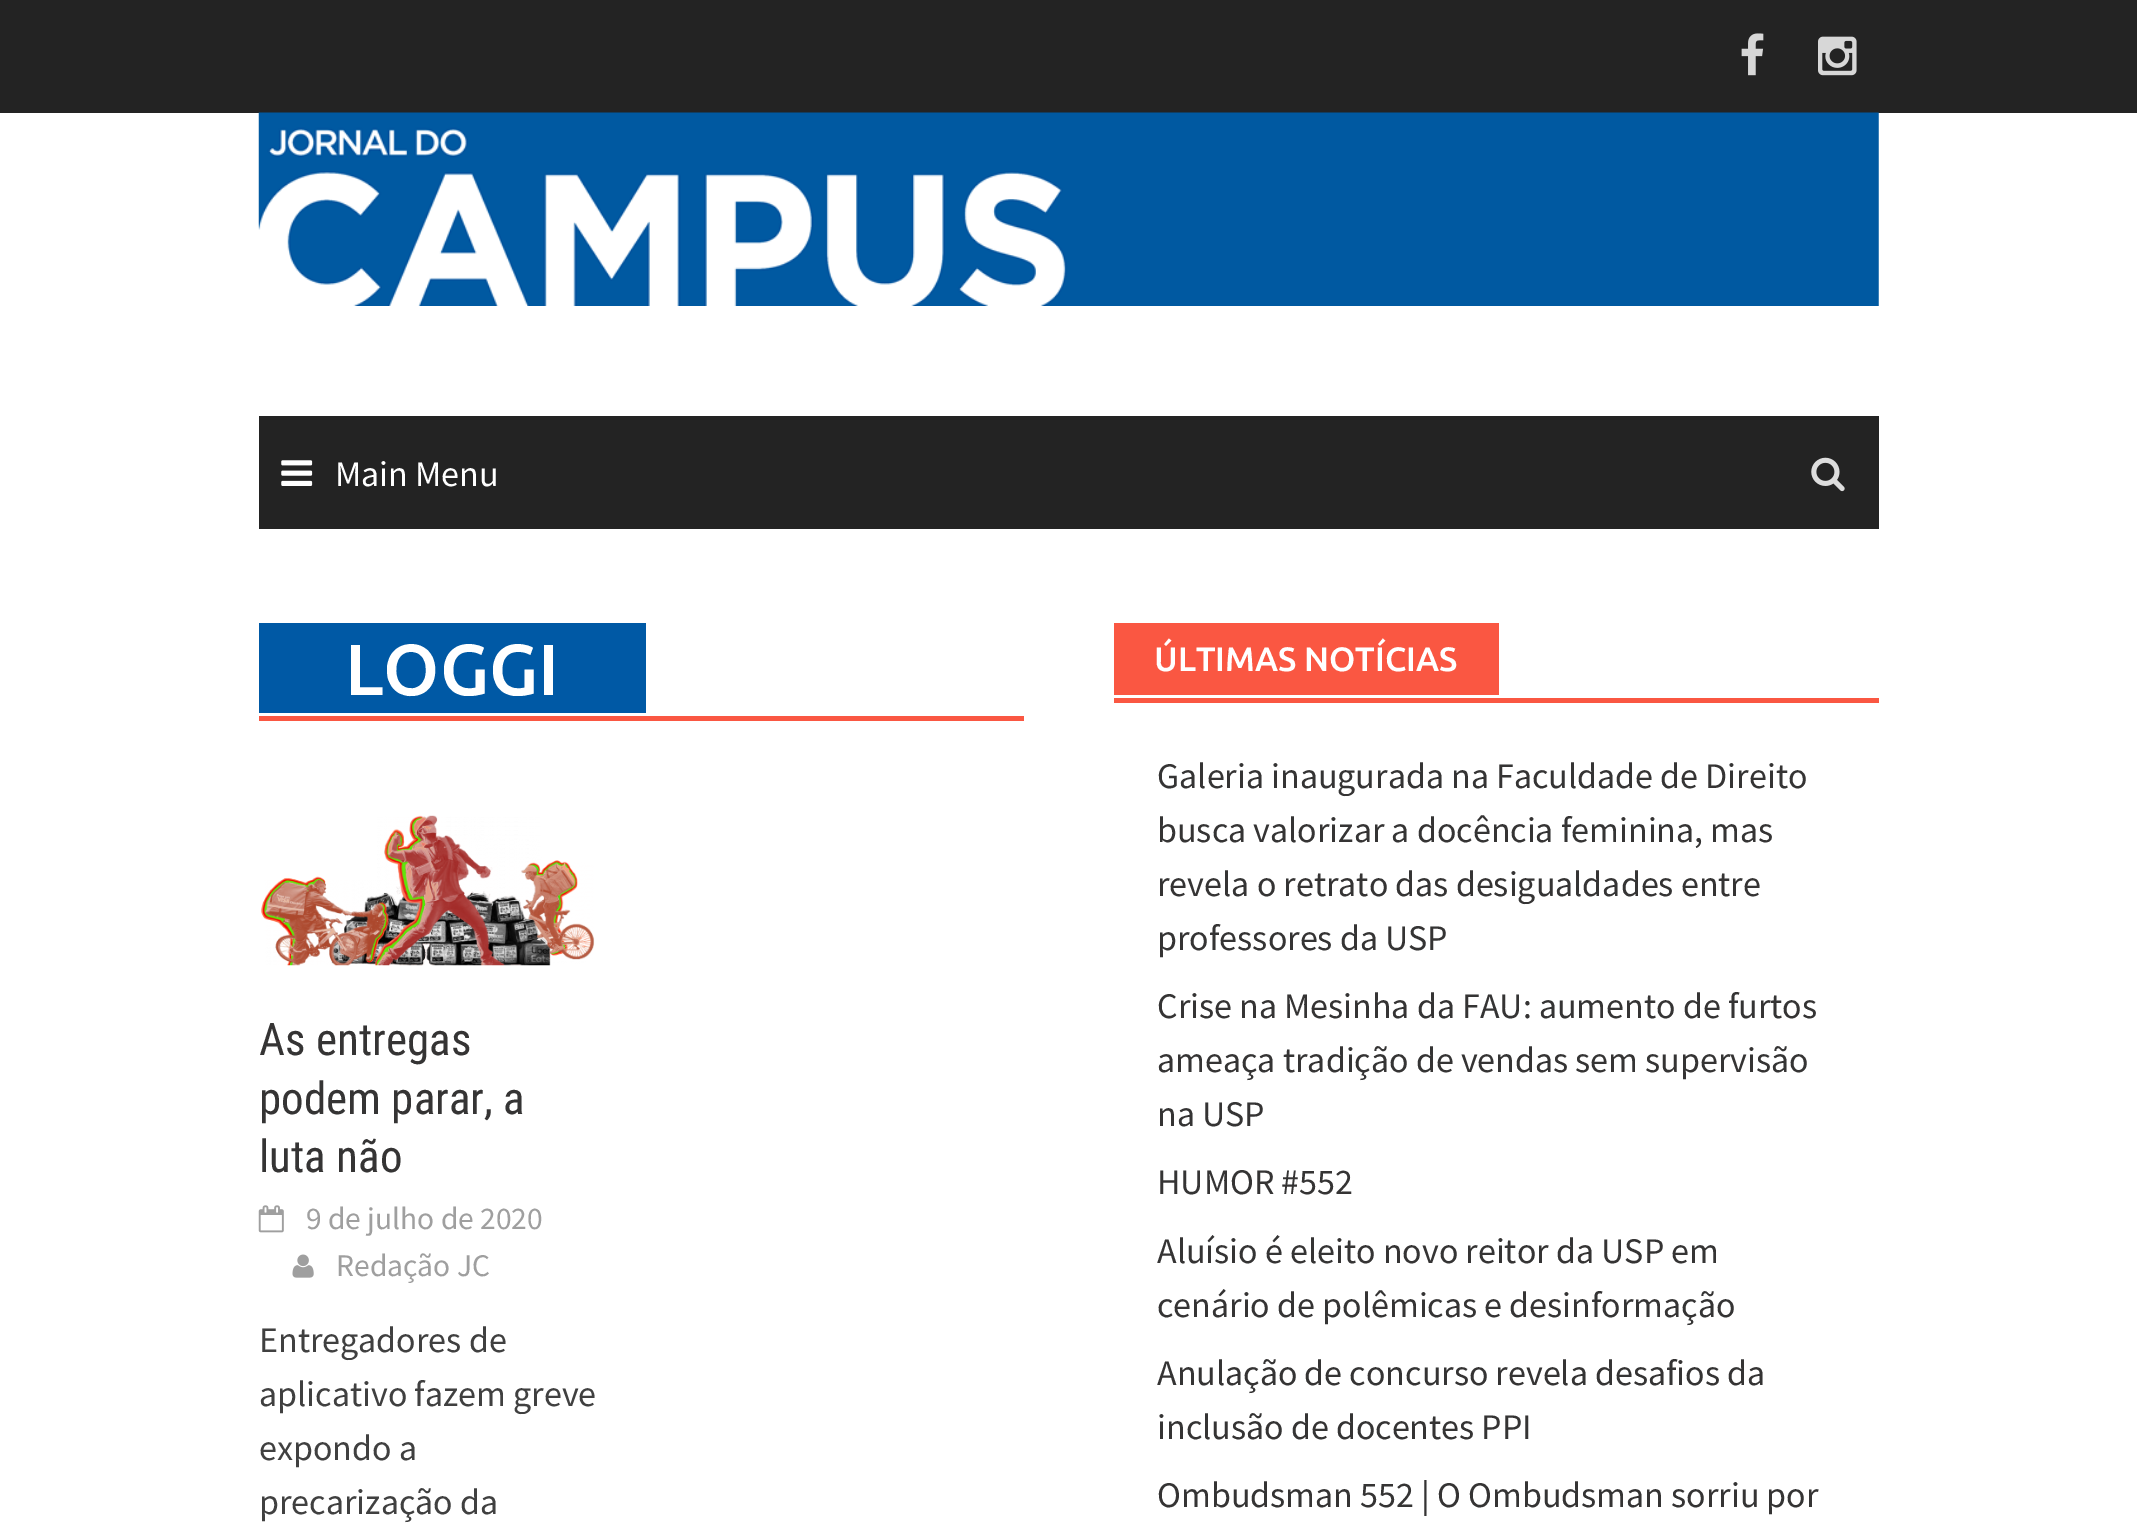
%!PS
<< /PageSize [2137 1540] >> setpagedevice
/C { dup -16 bitshift 255 div exch dup -8 bitshift 255 and 255 div exch 255 and 255 div setrgbcolor } def
/F { [ exch dup neg 0 0 3 -1 roll 0 0 ] selectfont } def
/T { moveto show } def
/R { rectfill } def
/I { 5 dict begin { /h /w /y /x /name } { exch def } forall
  gsave x y translate w h scale
  w h 8 [w 0 0 h 0 0] name (r) file false 3 colorimage grestore end } def
0 1540 translate 1 -1 scale
4 setmiterlimit
16#FFFFFF C
0 0 2137 1540 R
16#232323 C
0 0 2137 113 R
(1.rgb) 1741 33 23 43 I
(2.rgb) 1818 36 39 40 I
(3.rgb) 258 112 1621 194 I
259 416 1620 113 R
(4.rgb) 281 460 32 26 I
/SourceSansPro-Regular 36 F
16#FFFFFF C
(Main Menu) 335 486 T
(5.rgb) 1811 457 34 35 I
16#FA5742 C
259 716 765 5 R
16#0059A5 C
259 623 387 90 R
/Ubuntu-Medium 72 F
16#FFFFFF C
(LOGGI) 345 695 T
(6.rgb) 261 815 334 151 I
/RobotoCondensed-Regular 45 F
16#353434 C
(As entregas) 259 1055 T
(podem parar, a) 259 1114 T
(luta não) 259 1172 T
(7.rgb) 258 1205 26 28 I
/SourceSansPro-Regular 31.5 F
16#9F9F9F C
(9 de julho de 2020) 306 1229 T
(8.rgb) 292 1254 22 24 I
(Redação JC) 336 1276 T
/SourceSansPro-Regular 36 F
16#404040 C
(Entregadores de) 259 1352 T
(aplicativo fazem greve) 259 1406 T
(expondo a) 259 1460 T
(precarização da) 259 1514 T
16#FA5742 C
1114 698 765 5 R
1114 623 385 72 R
/Ubuntu-Medium 33.75 F
16#FFFFFF C
(ÚLTIMAS NOTÍCIAS) 1154 671 T
/SourceSansPro-Regular 36 F
16#353434 C
(Galeria inaugurada na Faculdade de Direito) 1157 788 T
(busca valorizar a docência feminina, mas) 1157 842 T
(revela o retrato das desigualdades entre) 1157 896 T
(professores da USP) 1157 950 T
(Crise na Mesinha da FAU: aumento de furtos) 1157 1018 T
(ameaça tradição de vendas sem supervisão) 1157 1072 T
(na USP) 1157 1126 T
(HUMOR #552) 1157 1194 T
(Aluísio é eleito novo reitor da USP em) 1157 1263 T
(cenário de polêmicas e desinformação) 1157 1317 T
(Anulação de concurso revela desafios da) 1157 1385 T
(inclusão de docentes PPI) 1157 1439 T
(Ombudsman 552 | O Ombudsman sorriu por) 1157 1507 T
showpage
